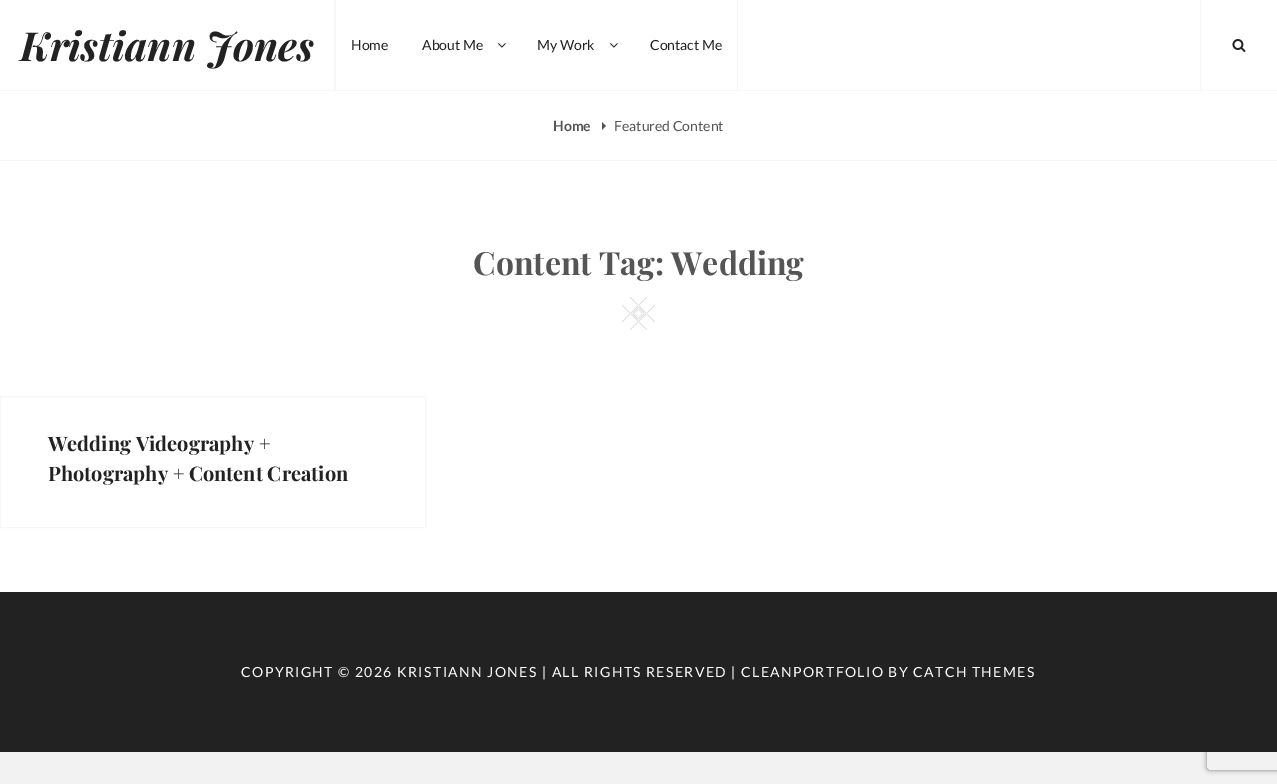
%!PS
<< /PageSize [1277 784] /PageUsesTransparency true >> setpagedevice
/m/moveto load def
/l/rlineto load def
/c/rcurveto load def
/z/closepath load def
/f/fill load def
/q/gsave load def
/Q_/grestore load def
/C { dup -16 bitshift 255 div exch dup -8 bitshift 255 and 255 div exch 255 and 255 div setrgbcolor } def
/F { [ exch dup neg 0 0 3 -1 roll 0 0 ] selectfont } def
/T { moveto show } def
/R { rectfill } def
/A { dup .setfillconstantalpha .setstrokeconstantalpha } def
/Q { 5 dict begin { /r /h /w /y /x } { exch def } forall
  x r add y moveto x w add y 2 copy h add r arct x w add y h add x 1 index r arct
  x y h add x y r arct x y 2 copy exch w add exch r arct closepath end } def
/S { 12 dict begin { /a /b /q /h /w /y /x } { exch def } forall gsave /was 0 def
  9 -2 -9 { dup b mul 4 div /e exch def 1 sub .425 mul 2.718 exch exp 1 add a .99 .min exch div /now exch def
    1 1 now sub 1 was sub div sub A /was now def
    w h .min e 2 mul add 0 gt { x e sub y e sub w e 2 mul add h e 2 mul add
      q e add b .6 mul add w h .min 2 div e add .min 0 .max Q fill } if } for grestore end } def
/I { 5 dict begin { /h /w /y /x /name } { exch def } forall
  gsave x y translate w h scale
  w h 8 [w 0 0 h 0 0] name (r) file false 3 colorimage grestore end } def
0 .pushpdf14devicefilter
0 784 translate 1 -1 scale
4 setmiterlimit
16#F2F2F2 C
0 0 1277 784 R
16#FFFFFF C
0 0 1277 592 R
16#F7F7F7 C
0 90 1277 1 R
334 0 2 90 R
/PlayfairDisplay-BoldItalic 40 F
16#222222 C
(Kristiann Jones) 20 61 T
16#F7F7F7 C
737 0 1 90 R
/Lato-Regular 14 F
16#222222 C
(Home) 351 50 T
(About Me) 422 50 T
(1.rgb) 498 43 8 5 I
(My Work) 537 50 T
(1.rgb) 610 43 8 5 I
(Contact Me) 650 50 T
16#F7F7F7 C
1200 0 1 90 R
(2.rgb) 1232 39 14 13 I
0 160 1277 1 R
/Lato-Bold 14 F
16#555555 C
(Home) 553 131 T
602 130 m 0 -8 l 4 4 l z f
/Lato-Regular 14 F
(Featured Content) 614 131 T
/PlayfairDisplay-Bold 32 F
(Content Tag: Wedding) 473 275 T
(3.rgb) 622 297 33 33 I
16#F7F7F7 C
.5 396.5 425 131 rectstroke
/PlayfairDisplay-Bold 20 F
16#222222 C
(Wedding Videography +) 48 451 T
(Photography + Content Creation) 48 481 T
q
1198 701 m 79 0 l 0 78 l -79 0 l z 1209 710 m 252 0 l 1 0 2 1 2 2 c 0 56 l 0 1 -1 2 -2 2 c -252 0 l -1 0 -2 -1 -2 -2 c 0 -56 l 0 -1 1 -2 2 -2 c z eoclip newpath
16#808080 C
1207 710 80 60 2 2.5 1 S
Q_
0 592 1277 160 R
/Lato-Regular 14 F
16#FFFFFF C
241 677 m 1.4 0 (COPYRIGHT © 2026 KRISTIANN JONES | ALL RIGHTS RESERVED | CLEANPORTFOLIO BY CATCH THEMES) ashow
.poppdf14devicefilter showpage
